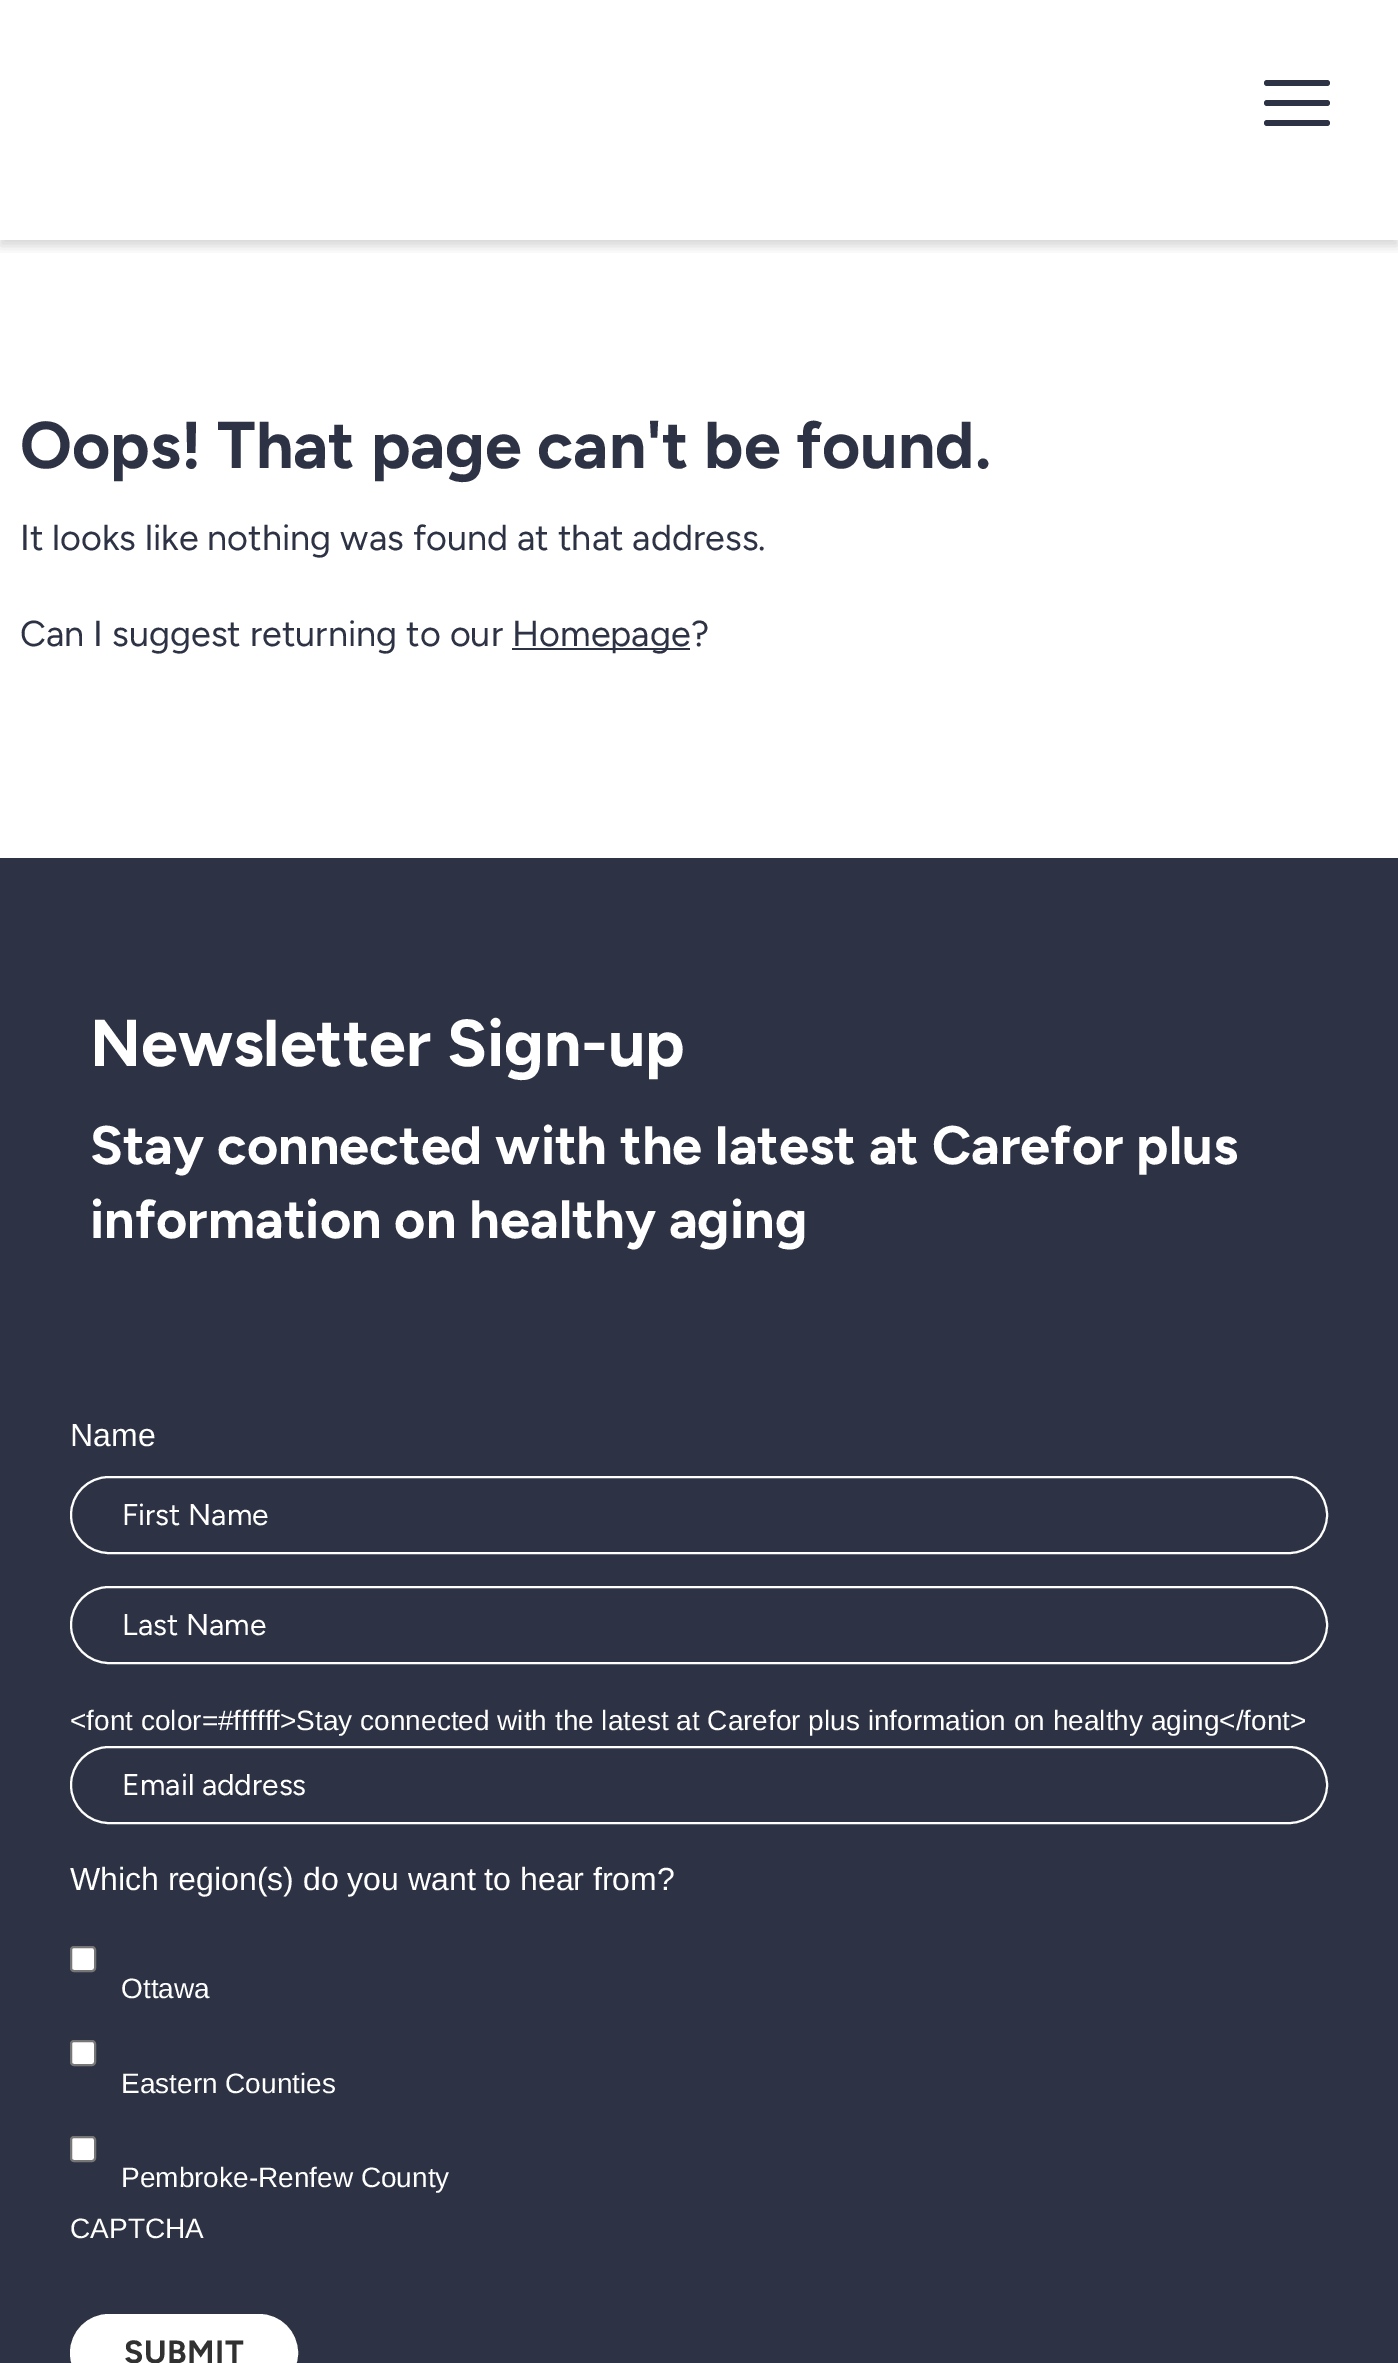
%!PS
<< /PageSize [1398 2363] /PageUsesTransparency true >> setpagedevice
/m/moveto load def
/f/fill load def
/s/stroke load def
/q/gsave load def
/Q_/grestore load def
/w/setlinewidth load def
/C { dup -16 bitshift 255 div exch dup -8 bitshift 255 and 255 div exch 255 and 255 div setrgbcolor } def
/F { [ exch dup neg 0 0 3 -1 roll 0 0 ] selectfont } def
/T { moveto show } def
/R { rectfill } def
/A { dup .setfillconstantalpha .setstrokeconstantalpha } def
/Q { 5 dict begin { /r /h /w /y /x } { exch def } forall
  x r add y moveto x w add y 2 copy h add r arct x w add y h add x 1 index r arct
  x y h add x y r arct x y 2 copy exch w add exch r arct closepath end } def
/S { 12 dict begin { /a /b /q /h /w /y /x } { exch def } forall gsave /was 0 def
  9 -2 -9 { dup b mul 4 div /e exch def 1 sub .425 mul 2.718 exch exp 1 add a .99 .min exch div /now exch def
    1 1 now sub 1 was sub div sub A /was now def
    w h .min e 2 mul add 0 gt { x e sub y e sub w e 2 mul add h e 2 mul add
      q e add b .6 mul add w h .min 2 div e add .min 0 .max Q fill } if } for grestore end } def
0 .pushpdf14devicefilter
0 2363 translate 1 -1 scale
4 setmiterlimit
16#FFFFFF C
0 0 1398 2363 R
q
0 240 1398 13 rectclip
16#000000 C
0 6 1398 240 0 6 .16 S
Q_
16#2D3344 C
1264 80 66 6 3 Q f
1264 100 66 6 3 Q f
1264 120 66 6 3 Q f
/Figtree-Bold 66 F
(Oops! That page can't be found.) 20 468 T
/Figtree-Regular 36 F
(It looks like nothing was found at that address.) 20 550 T
(Can I suggest returning to our) 20 646 T
512 648 178 2 R
(Homepage?) 512 646 T
0 858 1398 1505 R
/Figtree-Bold 66 F
16#FFFFFF C
(Newsletter Sign-up) 90 1066 T
/Figtree-Bold 54 F
(Stay connected with the latest at Carefor plus) 90 1164 T
(information on healthy aging) 90 1238 T
/LiberationSans-Regular 32 F
(Name) 70 1446 T
2 w
71 1477 1256 76 38 Q s
/Figtree-Regular 30 F
(First Name) 122 1525 T
71 1587 1256 76 38 Q s
(Last Name) 122 1635 T
/LiberationSans-Regular 28 F
(<font color=#ffffff>Stay connected with the latest at Carefor plus information on healthy aging</font>) 70 1730 T
71 1747 1256 76 38 Q s
/Figtree-Regular 30 F
(Email address) 122 1795 T
/LiberationSans-Regular 32 F
(Which region\(s\) do you want to hear from?) 70 1890 T
71 1947 24 24 3 Q q f Q_
16#767676 C
s
/LiberationSans-Regular 28 F
16#FFFFFF C
(Ottawa) 121 1998 T
71 2041 24 24 3 Q q f Q_
16#767676 C
s
16#FFFFFF C
(Eastern Counties) 121 2093 T
71 2137 24 24 3 Q q f Q_
16#767676 C
s
16#FFFFFF C
(Pembroke-Renfew County) 121 2187 T
(CAPTCHA) 70 2238 T
72 2316 224 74 37 Q q f Q_
4 w
s
/Figtree-Bold 32 F
16#313131 C
124 2363 m .5 0 (SUBMIT) ashow
.poppdf14devicefilter showpage
